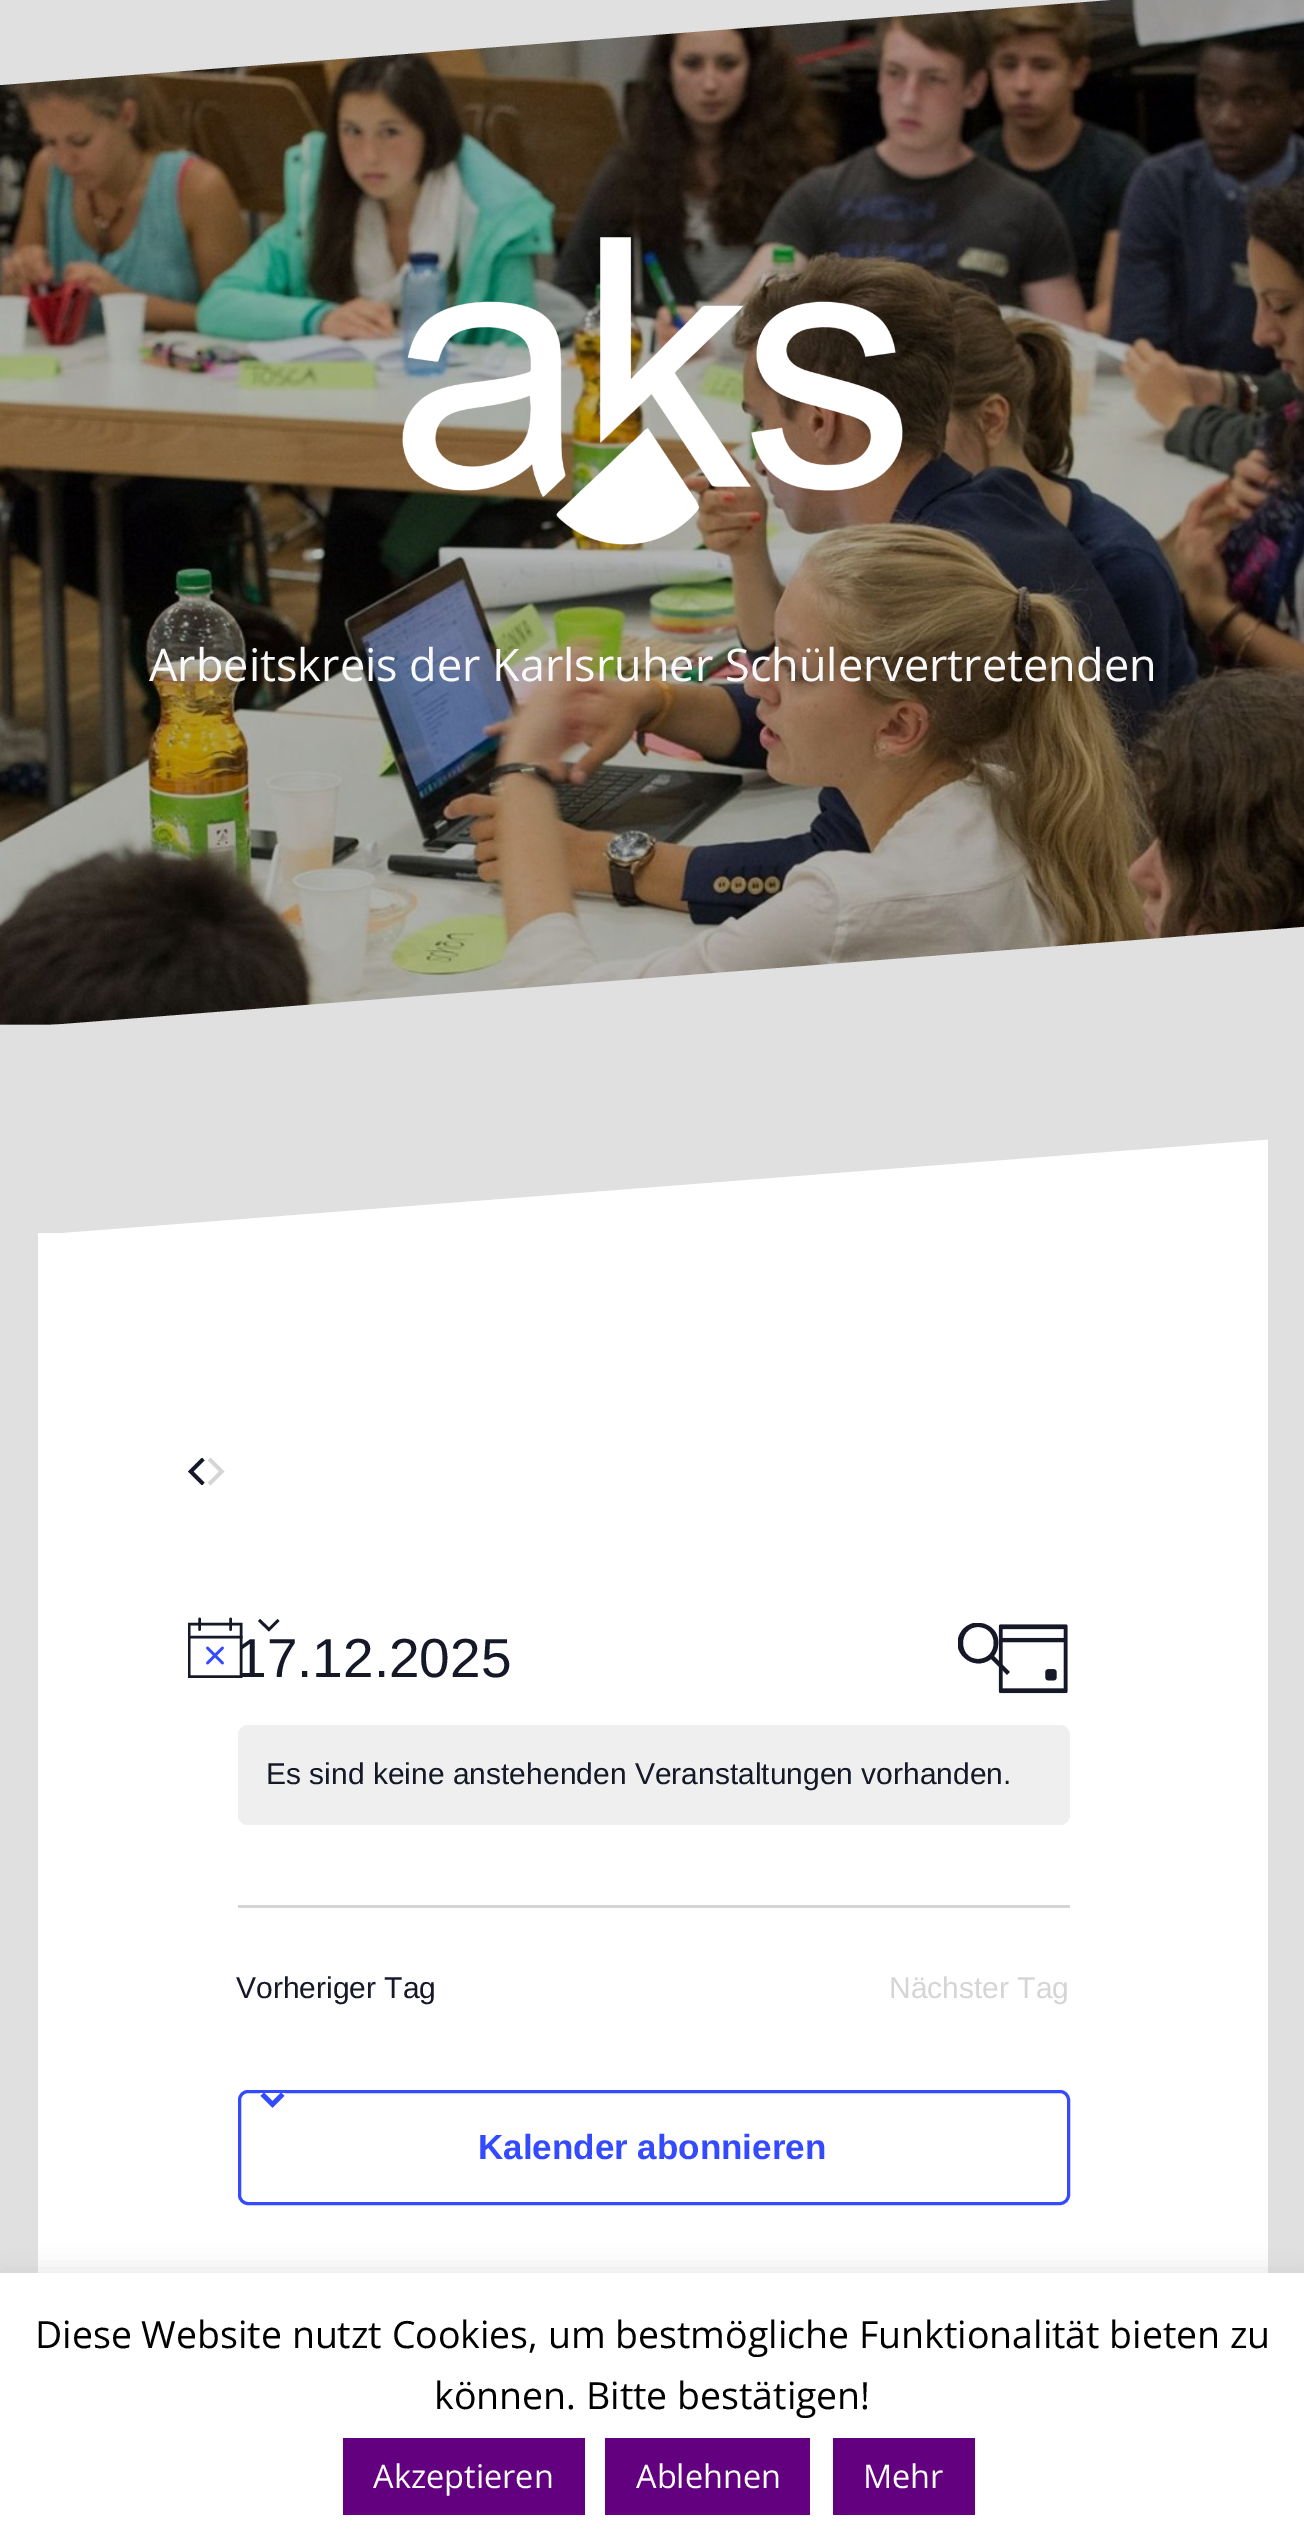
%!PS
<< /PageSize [1304 2543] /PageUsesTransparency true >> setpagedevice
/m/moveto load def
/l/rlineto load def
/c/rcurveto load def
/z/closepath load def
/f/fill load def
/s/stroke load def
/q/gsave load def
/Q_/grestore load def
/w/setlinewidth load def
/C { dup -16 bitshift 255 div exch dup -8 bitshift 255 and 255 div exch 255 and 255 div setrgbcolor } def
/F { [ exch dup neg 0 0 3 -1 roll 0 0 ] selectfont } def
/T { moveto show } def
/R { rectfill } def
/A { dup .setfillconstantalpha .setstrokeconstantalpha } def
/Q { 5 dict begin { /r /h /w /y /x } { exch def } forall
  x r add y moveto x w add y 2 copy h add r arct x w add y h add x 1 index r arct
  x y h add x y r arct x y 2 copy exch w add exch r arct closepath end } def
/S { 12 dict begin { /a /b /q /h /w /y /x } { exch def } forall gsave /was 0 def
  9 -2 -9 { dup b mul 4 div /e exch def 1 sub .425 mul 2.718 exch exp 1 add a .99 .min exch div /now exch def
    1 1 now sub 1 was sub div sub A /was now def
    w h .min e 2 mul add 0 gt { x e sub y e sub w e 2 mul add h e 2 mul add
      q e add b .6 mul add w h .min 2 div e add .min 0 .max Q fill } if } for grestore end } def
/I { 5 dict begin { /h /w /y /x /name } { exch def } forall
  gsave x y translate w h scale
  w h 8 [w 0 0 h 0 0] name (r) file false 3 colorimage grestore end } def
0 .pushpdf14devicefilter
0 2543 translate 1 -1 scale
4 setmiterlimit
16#E0E0E0 C
0 0 1304 2543 R
16#9D9D9D C
0 1024 64 1 R
(1.rgb) 0 0 1304 1025 I
16#E0E0E0 C
0 85 m 0 -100 l 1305 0 l f
(2.rgb) 402 237 501 308 I
/OpenSans-Regular 45 F
16#F9F9F9 C
(Arbeitskreis der Karlsruher Schülervertretenden) 149 681 T
16#E0E0E0 C
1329 925 m 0 104 l -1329 0 l f
16#FFFFFF C
38 1233 1230 1040 R
q
38 1138 1230 97 rectclip
1290 1138 m 0 97 l -1252 0 l f
Q_
16#141827 C
260 1619 m 9 8.5 l 8.5 -8.5 l 2 2 l -10.5 10.5 l -11 -10.5 l z eofill
/LiberationSans-Regular 55 F
(17.12.2025) 236 1677 T
q
958 1623 52 52 rectclip
994 1656 m 16 16 l -3 3 l -16 -16 l -18 14 -43 -8 -30 -27 c 3 -5 8 -8 13 -9 c 7 -1 14 1 19 6 c 7 7 7 19 1 27 c z 978 1627 m -20 0 -20 32 0 32 c 21 0 21 -32 0 -32 c z eofill
Q_
(3.rgb) 998 1624 70 70 I
16#EFEFF0 C
238 1725 832 100 10 Q f
q
188 1618 55 60 rectclip
16#141827 C
2.6 w
189 1624 m 52 0 l 0 52.5 l -52 0 l z s
Q_
16#334AFF C
2.6 w
1 setlinecap
207.5 1648 m 15 15 l 222.5 1648 m -15 15 l s
16#141827 C
199.5 1619 m 0 10.5 l 230.5 1619 m 0 10.5 l s
q
188 1618 55 60 rectclip
2 setlinecap
189 1637 m 52 0 l s
Q_
/LiberationSans-Regular 30 F
(Es sind keine anstehenden Veranstaltungen vorhanden.) 266 1784 T
16#D5D5D5 C
238 1905 832 3 R
q
188 1458 17 27 rectclip
16#141827 C
204.5 1482.5 m -2.5 3 l -14 -14 l 14 -14 l 2.5 3 l -11 11 l z f
Q_
16#141827 C
(Vorheriger Tag) 236 1998 T
16#D5D5D5 C
208 1460.5 m 2.5 -3 l 14 14 l -14 14 l -2.5 -3 l 11 -11 l z f
(Nächster Tag) 889 1998 T
16#334AFF C
3 w
0 setlinecap
239.5 2091.5 829 112 8.5 Q s
(4.rgb) 260 2093 25 15 I
/LiberationSans-Bold 35 F
(Kalender abonnieren) 478 2159 T
16#ACABAB C
0 2270 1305 273 0 12.5 .3 S
16#FFFFFF C
0 2273 1304 270 R
/OpenSans-Regular 37.5 F
16#000000 C
(Diese Website nutzt Cookies, um bestmögliche Funktionalität bieten zu) 35 2348 T
(können. Bitte bestätigen!) 434 2409 T
16#63007F C
343 2438 242 77 R
/OpenSans-Regular 32.5 F
16#FFFFFF C
(Akzeptieren) 373 2488 T
16#63007F C
605 2438 205 77 R
16#FFFFFF C
(Ablehnen) 636 2488 T
16#63007F C
833 2438 142 77 R
16#FFFFFF C
(Mehr) 863 2488 T
.poppdf14devicefilter showpage
